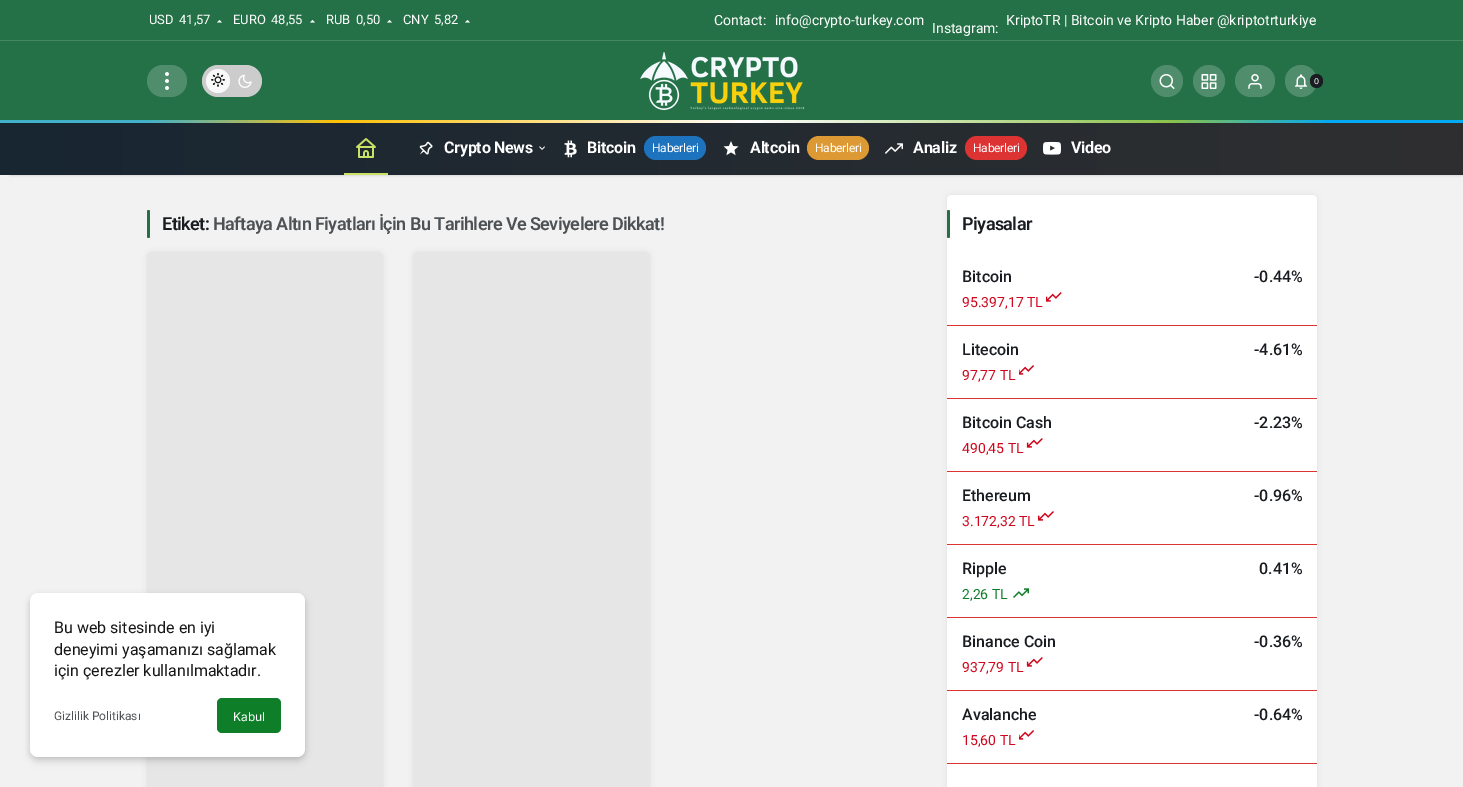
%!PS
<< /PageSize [1463 787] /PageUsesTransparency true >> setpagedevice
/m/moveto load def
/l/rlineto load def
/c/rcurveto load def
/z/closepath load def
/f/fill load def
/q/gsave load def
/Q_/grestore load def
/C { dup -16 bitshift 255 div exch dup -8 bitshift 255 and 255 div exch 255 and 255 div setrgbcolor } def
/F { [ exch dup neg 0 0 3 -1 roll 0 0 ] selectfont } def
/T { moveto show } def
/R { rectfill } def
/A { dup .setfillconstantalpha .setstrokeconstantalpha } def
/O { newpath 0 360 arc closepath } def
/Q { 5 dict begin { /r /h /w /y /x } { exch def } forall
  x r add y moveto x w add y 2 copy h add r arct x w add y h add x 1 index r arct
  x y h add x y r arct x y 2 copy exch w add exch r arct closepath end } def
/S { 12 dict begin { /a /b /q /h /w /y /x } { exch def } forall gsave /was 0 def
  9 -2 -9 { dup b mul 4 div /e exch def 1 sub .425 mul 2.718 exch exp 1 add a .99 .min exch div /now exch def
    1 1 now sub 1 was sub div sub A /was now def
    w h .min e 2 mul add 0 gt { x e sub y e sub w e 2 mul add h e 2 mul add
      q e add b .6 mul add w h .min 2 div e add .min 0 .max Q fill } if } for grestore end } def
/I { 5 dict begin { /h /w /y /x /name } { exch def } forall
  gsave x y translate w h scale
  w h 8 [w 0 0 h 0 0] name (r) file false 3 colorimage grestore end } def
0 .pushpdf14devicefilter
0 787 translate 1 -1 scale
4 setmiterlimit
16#F2F2F3 C
0 0 1463 787 R
16#000000 C
10 121 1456 55 0 1 .1 S
16#247147 C
0 0 1463 120 R
/Roboto-Regular 13 F
16#FFFFFF C
(USD) 149 24 T
(41,57) 179 24 T
217 22.5 m 2.5 -2.5 l 2.5 2.5 l z f
(EURO) 233 24 T
(48,55) 271 24 T
310 22.5 m 2.5 -2.5 l 2.5 2.5 l z f
(RUB) 326 24 T
(0,50) 356 24 T
387 22.5 m 2.5 -2.5 l 2.5 2.5 l z f
(CNY) 403 24 T
(5,82) 434 24 T
465 22.5 m 2.5 -2.5 l 2.5 2.5 l z f
/Roboto-Regular 14 F
(Contact:) 714 25 T
(info@crypto-turkey.com) 775 25 T
(Instagram:) 932 33 T
(KriptoTR | Bitcoin ve Kripto Haber @kriptotrturkiye) 1006 25 T
16#458663 C
0 40 1463 1 R
16#508D6C C
147 65 40 32 16 Q f
(1.rgb) 165 72 4 18 I
16#CCCCCC C
202 65 60 32 16 Q f
(3.rgb) 211 74 14 14 I
0.87 A
16#FFFFFF C
218 81 12 O f
1 A
(2.rgb) 211 73 14 14 I
(4.rgb) 238 74 14 14 I
(5.rgb) 640 52 165 59 I
16#508D6C C
1167 81 16 O f
(6.rgb) 1159 74 16 15 I
1209 81 16 O f
(7.rgb) 1201 74 16 15 I
1235 65 40 32 16 Q f
(8.rgb) 1248 74 14 15 I
1301 81 16 O f
(9.rgb) 1295 74 12 15 I
16#191C20 C
1310 74 13 14 6.5 Q f
/Inter-Regular 8 F
16#FFFFFF C
(0) 1314 84 T
q 0 120 m 1463 0 l 0 3 l -1463 0 l z clip newpath
<< /ShadingType 2 /ColorSpace /DeviceRGB /Coords [0 122 1463 121] /Extend [true true] /Function << /FunctionType 3 /Domain [0 1] /Functions [<< /FunctionType 2 /Domain [0 1] /C0 [.259 .694 .792] /C1 [.259 .694 .792] /N 1 >> << /FunctionType 2 /Domain [0 1] /C0 [.259 .694 .792] /C1 [1 .757 .027] /N 1 >> << /FunctionType 2 /Domain [0 1] /C0 [1 .757 .027] /C1 [1 1 1] /N 1 >> << /FunctionType 2 /Domain [0 1] /C0 [1 1 1] /C1 [.545 .765 .29] /N 1 >> << /FunctionType 2 /Domain [0 1] /C0 [.545 .765 .29] /C1 [.012 .663 .957] /N 1 >> << /FunctionType 2 /Domain [0 1] /C0 [.012 .663 .957] /C1 [.012 .663 .957] /N 1 >>] /Bounds [.1 .23 .51 .8 .91] /Encode [0 1 0 1 0 1 0 1 0 1 0 1] >> >> shfill Q_
q 0 123 m 1463 0 l 0 52 l -1463 0 l z clip newpath
<< /ShadingType 2 /ColorSpace /DeviceRGB /Coords [0 148 1463 147] /Extend [true true] /Function << /FunctionType 2 /Domain [0 1] /C0 [.094 .149 .192] /C1 [.184 .184 .188] /N 1 >> >> shfill Q_
(10.rgb) 356 138 20 20 I
16#C9E265 C
344 173 44 2 R
(11.rgb) 419 141 14 14 I
/Roboto-Bold 16 F
16#FFFFFF C
444 153 m -.25 0 (Crypto News) ashow
(12.rgb) 539 146 6 4 I
(13.rgb) 564 140 13 18 I
587 153 m -.25 0 (Bitcoin) ashow
16#1E73BE C
644 136 62 24 12 Q f
/Roboto-Regular 12 F
16#FFFFFF C
652 152 m -.25 0 (Haberleri) ashow
(14.rgb) 723 141 16 15 I
/Roboto-Bold 16 F
750 153 m -.25 0 (Altcoin) ashow
16#DD9933 C
807 136 62 24 12 Q f
/Roboto-Regular 12 F
16#FFFFFF C
815 152 m -.25 0 (Haberleri) ashow
(15.rgb) 885 143 18 11 I
/Roboto-Bold 16 F
913 153 m -.25 0 (Analiz) ashow
16#DD3333 C
965 136 62 24 12 Q f
/Roboto-Regular 12 F
16#FFFFFF C
973 152 m -.25 0 (Haberleri) ashow
(16.rgb) 1043 141 18 14 I
/Roboto-Bold 16 F
1071 153 m -.25 0 (Video) ashow
16#247147 C
147 210 3 28 1.5 Q f
/Roboto-SemiBold 18 F
16#191C20 C
162 230 m -.55 0 (Etiket:) ashow
16#4F5255 C
213 230 m -.55 0 (Haftaya Altın Fiyatları İçin Bu Tarihlere Ve Seviyelere Dikkat!) ashow
16#32353D C
147 252 236 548 5 2.5 .1 S
16#E6E6E6 C
152 252 m 226 0 l 3 0 5 2 5 5 c 0 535 l -236 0 l 0 -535 l 0 -3 2 -5 5 -5 c z f
16#32353D C
413 252 237 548 5 2.5 .1 S
16#E6E6E6 C
418 252 m 227 0 l 3 0 5 2 5 5 c 0 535 l -237 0 l 0 -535 l 0 -3 2 -5 5 -5 c z f
16#32353D C
947 195 370 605 5 2.5 .1 S
16#FFFFFF C
947 195 370 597 5 Q f
16#247147 C
947 210 3 28 1.5 Q f
16#191C20 C
962 230 m -.55 0 (Piyasalar) ashow
16#DD3333 C
947 325 370 1 R
/Roboto-Medium 16 F
16#191C20 C
(Bitcoin) 962 282 T
(-0.44%) 1254 282 T
/Roboto-Regular 14 F
16#CF061C C
(95.397,17 TL) 962 307 T
(17.rgb) 1046 292 16 10 I
16#DD3333 C
947 398 370 1 R
/Roboto-Medium 16 F
16#191C20 C
(Litecoin) 962 355 T
(-4.61%) 1254 355 T
/Roboto-Regular 14 F
16#CF061C C
(97,77 TL) 962 380 T
(18.rgb) 1019 365 15 10 I
16#DD3333 C
947 471 370 1 R
/Roboto-Medium 16 F
16#191C20 C
(Bitcoin Cash) 962 428 T
(-2.23%) 1254 428 T
/Roboto-Regular 14 F
16#CF061C C
(490,45 TL) 962 453 T
(19.rgb) 1026 438 17 10 I
16#DD3333 C
947 544 370 1 R
/Roboto-Medium 16 F
16#191C20 C
(Ethereum) 962 501 T
(-0.96%) 1254 501 T
/Roboto-Regular 14 F
16#CF061C C
(3.172,32 TL) 962 526 T
(20.rgb) 1038 511 16 10 I
16#DD3333 C
947 617 370 1 R
/Roboto-Medium 16 F
16#191C20 C
(Ripple) 962 574 T
(0.41%) 1259 574 T
/Roboto-Regular 14 F
16#0F7E29 C
(2,26 TL) 962 599 T
(21.rgb) 1013 588 16 10 I
16#DD3333 C
947 690 370 1 R
/Roboto-Medium 16 F
16#191C20 C
(Binance Coin) 962 647 T
(-0.36%) 1254 647 T
/Roboto-Regular 14 F
16#CF061C C
(937,79 TL) 962 672 T
(19.rgb) 1026 657 17 10 I
16#DD3333 C
947 763 370 1 R
/Roboto-Medium 16 F
16#191C20 C
(Avalanche) 962 720 T
(-0.64%) 1254 720 T
/Roboto-Regular 14 F
16#CF061C C
(15,60 TL) 962 745 T
(18.rgb) 1019 730 15 10 I
16#000000 C
30 595 275 164 8 2 .08 S
30 597 275 164 8 4 .12 S
16#FFFFFF C
30 593 275 164 8 Q f
/Roboto-Regular 16 F
16#161616 C
(Bu web sitesinde en iyi) 54 633 T
(deneyimi yaşamanızı sağlamak) 54 655 T
(için çerezler kullanılmaktadır.) 54 676 T
/Roboto-Regular 12 F
16#4F5255 C
(Gizlilik Politikası) 54 720 T
16#0F7E29 C
217 698 64 35 5 Q f
/Inter-Regular 12 F
16#FFFFFF C
(Kabul) 233 721 T
.poppdf14devicefilter showpage
